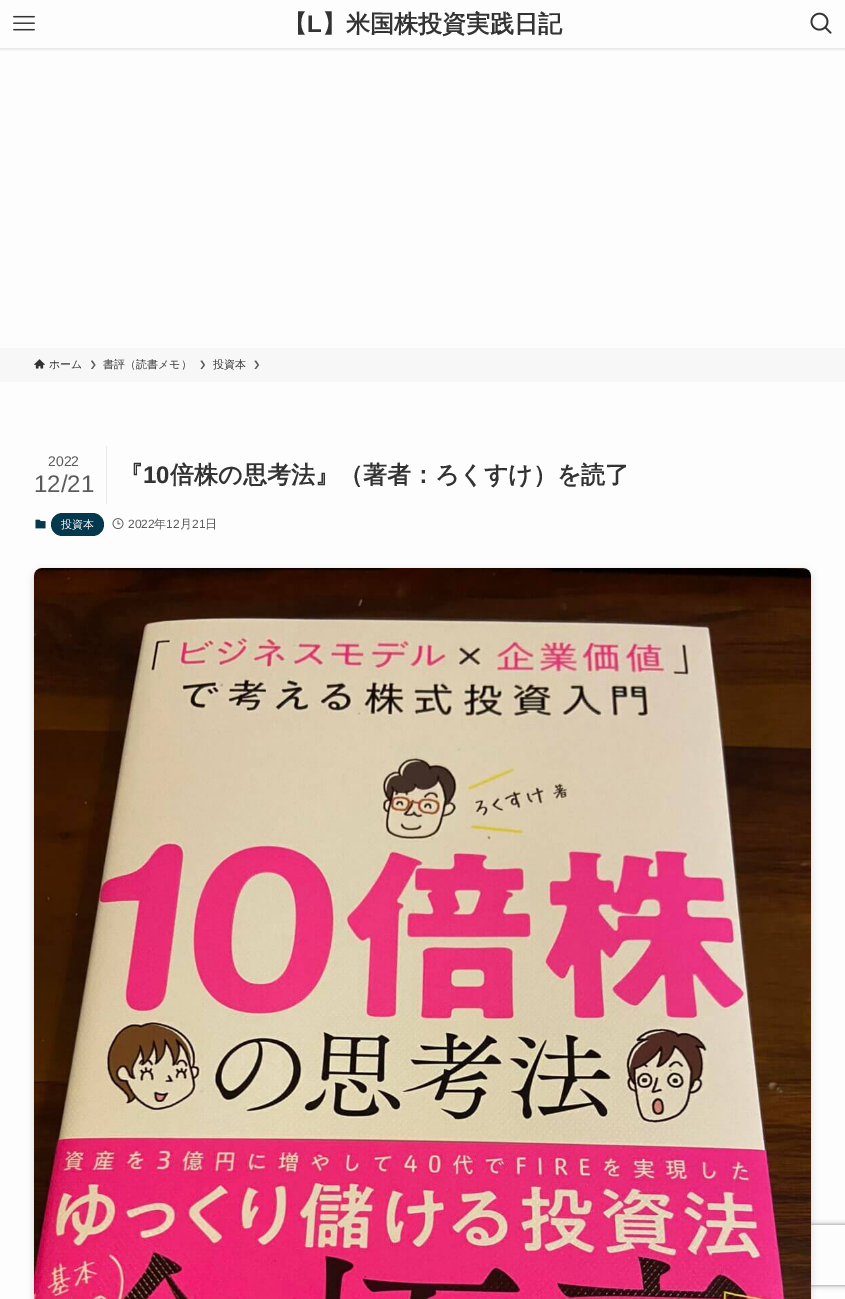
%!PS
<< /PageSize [845 1299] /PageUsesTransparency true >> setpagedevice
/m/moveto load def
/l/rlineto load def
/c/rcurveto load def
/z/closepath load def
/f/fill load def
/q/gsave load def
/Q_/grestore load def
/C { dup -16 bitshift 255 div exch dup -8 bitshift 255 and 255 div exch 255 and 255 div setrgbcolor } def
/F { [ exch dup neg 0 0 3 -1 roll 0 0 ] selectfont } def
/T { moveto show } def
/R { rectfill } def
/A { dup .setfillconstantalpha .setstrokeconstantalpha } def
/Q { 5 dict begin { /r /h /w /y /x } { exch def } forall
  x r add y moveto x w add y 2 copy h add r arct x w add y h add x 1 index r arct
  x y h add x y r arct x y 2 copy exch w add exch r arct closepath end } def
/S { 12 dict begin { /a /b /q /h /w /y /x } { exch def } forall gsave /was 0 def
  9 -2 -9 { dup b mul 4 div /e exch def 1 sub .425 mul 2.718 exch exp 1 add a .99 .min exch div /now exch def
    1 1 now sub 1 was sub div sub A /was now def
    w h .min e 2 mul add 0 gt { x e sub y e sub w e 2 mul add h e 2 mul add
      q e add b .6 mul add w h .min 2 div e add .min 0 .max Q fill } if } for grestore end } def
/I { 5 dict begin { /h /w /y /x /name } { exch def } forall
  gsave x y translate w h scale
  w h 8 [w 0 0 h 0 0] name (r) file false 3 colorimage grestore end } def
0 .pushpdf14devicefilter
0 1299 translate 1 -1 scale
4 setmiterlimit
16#FDFDFD C
0 0 845 1299 R
q
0 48 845 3 rectclip
16#000000 C
0 1 845 48 0 2 .12 S
Q_
(1.rgb) 13 15 22 16 I
/WenQuanYiZenHei-Bold 24 F
16#333333 C
(【) 283 32 T
/LiberationSans-Bold 24 F
(L) 307 32 T
/WenQuanYiZenHei-Bold 24 F
(】米国株投資実践日記) 322 32 T
(2.rgb) 810 12 22 22 I
16#F7F7F7 C
0 348 845 34 R
(3.rgb) 34 359 11 10 I
/WenQuanYiZenHei-Medium 11 F
16#333333 C
(ホーム) 49 368 T
16#5A5A5A C
92.5 360.5 m -1.5 .5 l 3 4 l -3 4 l 1.5 0 l 3 -4 l z f
16#333333 C
(書評（読書メモ）) 103 368 T
16#5A5A5A C
202 360.5 m -1.5 .5 l 3 4 l -3 4 l 1.5 0 l 3 -4 l z f
16#333333 C
(投資本) 213 368 T
16#5A5A5A C
256 360.5 m -1.5 .5 l 3 4 l -3 4 l 1.5 0 l 3 -4 l z f
16#E8E8E8 C
106 446 1 58 R
/LiberationSans-Regular 14 F
16#5B5B5B C
(2022) 48 466 T
/LiberationSans-Regular 24 F
(12/21) 34 492 T
/WenQuanYiZenHei-Bold 24 F
16#333333 C
(『) 119 483 T
/LiberationSans-Bold 24 F
(10) 143 483 T
/WenQuanYiZenHei-Bold 24 F
(倍株の思考法』（著者：ろくすけ）を読了) 170 483 T
(4.rgb) 35 519 11 10 I
16#04384C C
51 513 53 23 11.5 Q f
/WenQuanYiZenHei-Medium 11 F
16#FFFFFF C
(投資本) 61 528 T
(5.rgb) 112 518 12 12 I
/LiberationSans-Regular 12 F
16#5B5B5B C
(2022) 128 528 T
/WenQuanYiZenHei-Medium 12 F
(年) 154 528 T
/LiberationSans-Regular 12 F
(12) 166 528 T
/WenQuanYiZenHei-Medium 12 F
(月) 180 528 T
/LiberationSans-Regular 12 F
(21) 192 528 T
/WenQuanYiZenHei-Medium 12 F
(日) 205 528 T
16#000000 C
38 576 769 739 4 4 .2 S
34 570 777 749 8 4 .1 S
q
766 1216 m 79 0 l 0 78 l -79 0 l z 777 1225 m 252 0 l 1 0 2 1 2 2 c 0 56 l 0 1 -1 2 -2 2 c -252 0 l -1 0 -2 -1 -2 -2 c 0 -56 l 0 -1 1 -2 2 -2 c z eoclip newpath
16#808080 C
775 1225 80 60 2 2.5 1 S
Q_
(6.rgb) 34 568 777 731 I
.poppdf14devicefilter showpage
